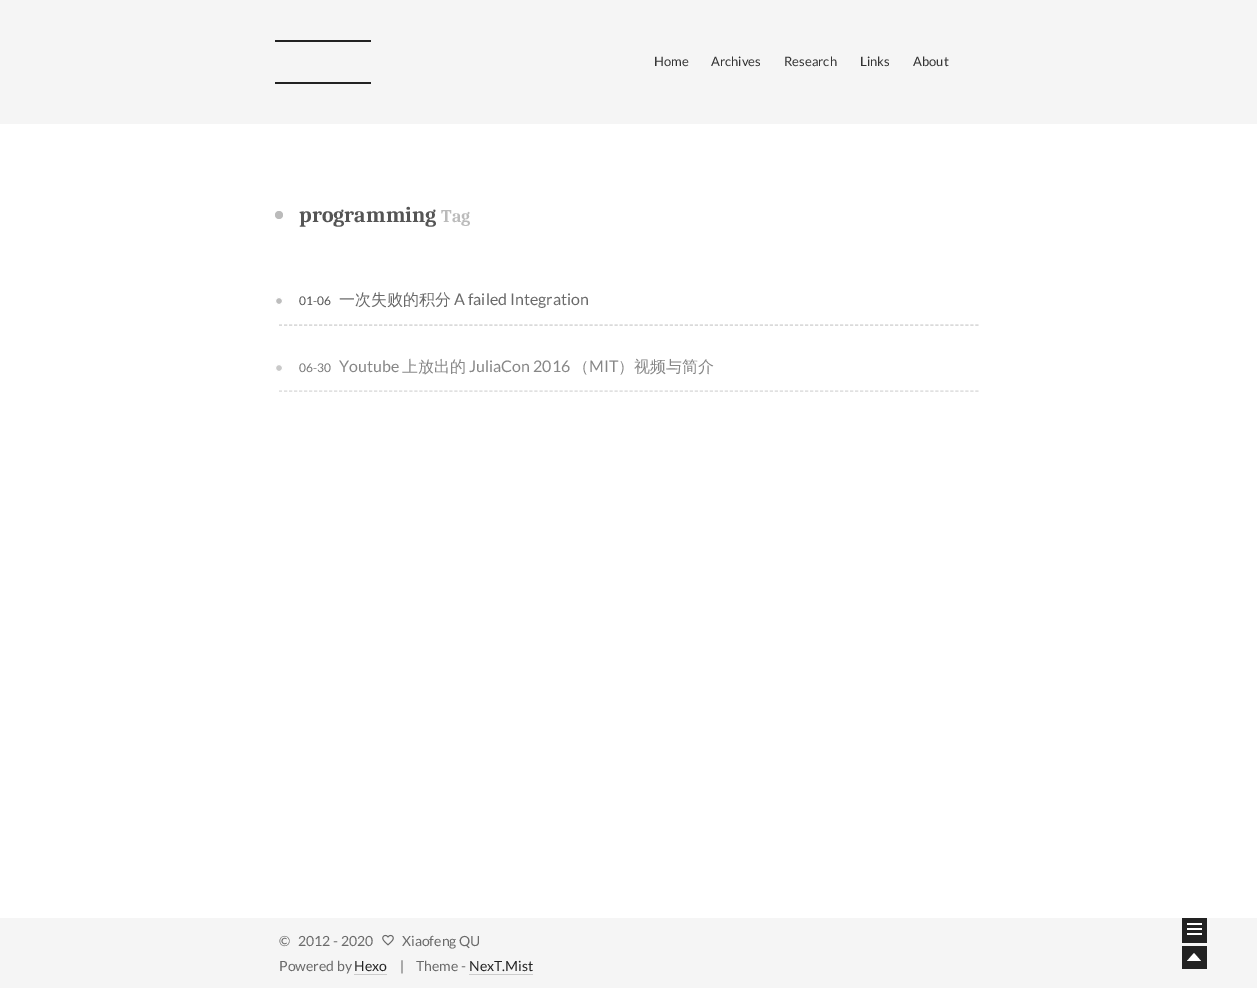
%!PS
<< /PageSize [1257 988] >> setpagedevice
/m/moveto load def
/l/rlineto load def
/z/closepath load def
/f/fill load def
/s/stroke load def
/q/gsave load def
/Q_/grestore load def
/C { dup -16 bitshift 255 div exch dup -8 bitshift 255 and 255 div exch 255 and 255 div setrgbcolor } def
/F { [ exch dup neg 0 0 3 -1 roll 0 0 ] selectfont } def
/T { moveto show } def
/R { rectfill } def
/O { newpath 0 360 arc closepath } def
/I { 5 dict begin { /h /w /y /x /name } { exch def } forall
  gsave x y translate w h scale
  w h 8 [w 0 0 h 0 0] name (r) file false 3 colorimage grestore end } def
0 988 translate 1 -1 scale
4 setmiterlimit
16#FFFFFF C
0 0 1257 988 R
16#F5F5F5 C
0 0 1257 124 R
16#222222 C
275 40 96 2 R
275 82 96 2 R
/Lato-Regular 13 F
16#333333 C
(Home) 654 66 T
(Archives) 711 66 T
(Research) 784 66 T
(Links) 860 66 T
(About) 913 66 T
16#BBBBBB C
279 215 4 O f
/Caladea-Bold 22 F
16#555555 C
(programming) 299 222 T
/Caladea-Bold 18 F
16#BBBBBB C
(Tag) 441 222 T
16#CDCDCD C
[3 2.01] 0 setdash
279 325 m 700 0 l s
16#BDBDBD C
279 301 3.5 O q f Q_
16#FFFFFF C
[] 0 setdash
s
/Lato-Regular 12 F
16#555555 C
(01-06) 299 305 T
/WenQuanYiZenHei-Medium 16 F
16#6A6A6A C
(一次失败的积分) 339 305 T
/Lato-Regular 16 F
(A failed Integration) 454 305 T
16#D7D7D7 C
[3 2.01] 0 setdash
279 391 m 700 0 l s
16#C9C9C9 C
279 368 3.5 O q f Q_
16#FFFFFF C
[] 0 setdash
s
/Lato-Regular 12 F
16#797979 C
(06-30) 299 372 T
/Lato-Regular 16 F
16#878787 C
(Youtube) 339 372 T
/WenQuanYiZenHei-Medium 16 F
(上放出的) 402 372 T
/Lato-Regular 16 F
(JuliaCon 2016) 469 372 T
/WenQuanYiZenHei-Medium 16 F
(（) 573 372 T
/Lato-Regular 16 F
(MIT) 589 372 T
/WenQuanYiZenHei-Medium 16 F
(）视频与简介) 618 372 T
16#F5F5F5 C
0 918 1257 70 R
16#222222 C
1182 918 25 25 R
16#FFFFFF C
1187 923 15 2 R
1187 928 15 2 R
1187 933 15 2 R
/Lato-Regular 14 F
16#6A6A6A C
(©) 279 946 T
(2012 - 2020) 298 946 T
(1.rgb) 382 934 12 12 I
(Xiaofeng QU) 402 946 T
(Powered by) 279 971 T
16#222222 C
(Hexo) 354 971 T
16#CCCCCC C
354 974 33 1 R
16#6A6A6A C
(|) 400 971 T
(Theme -) 416 971 T
16#222222 C
(NexT.Mist) 469 971 T
16#CCCCCC C
469 974 64 1 R
16#222222 C
1182 946 25 23 R
16#FFFFFF C
1201 961 m -14 0 l 7 -8 l z f
showpage
